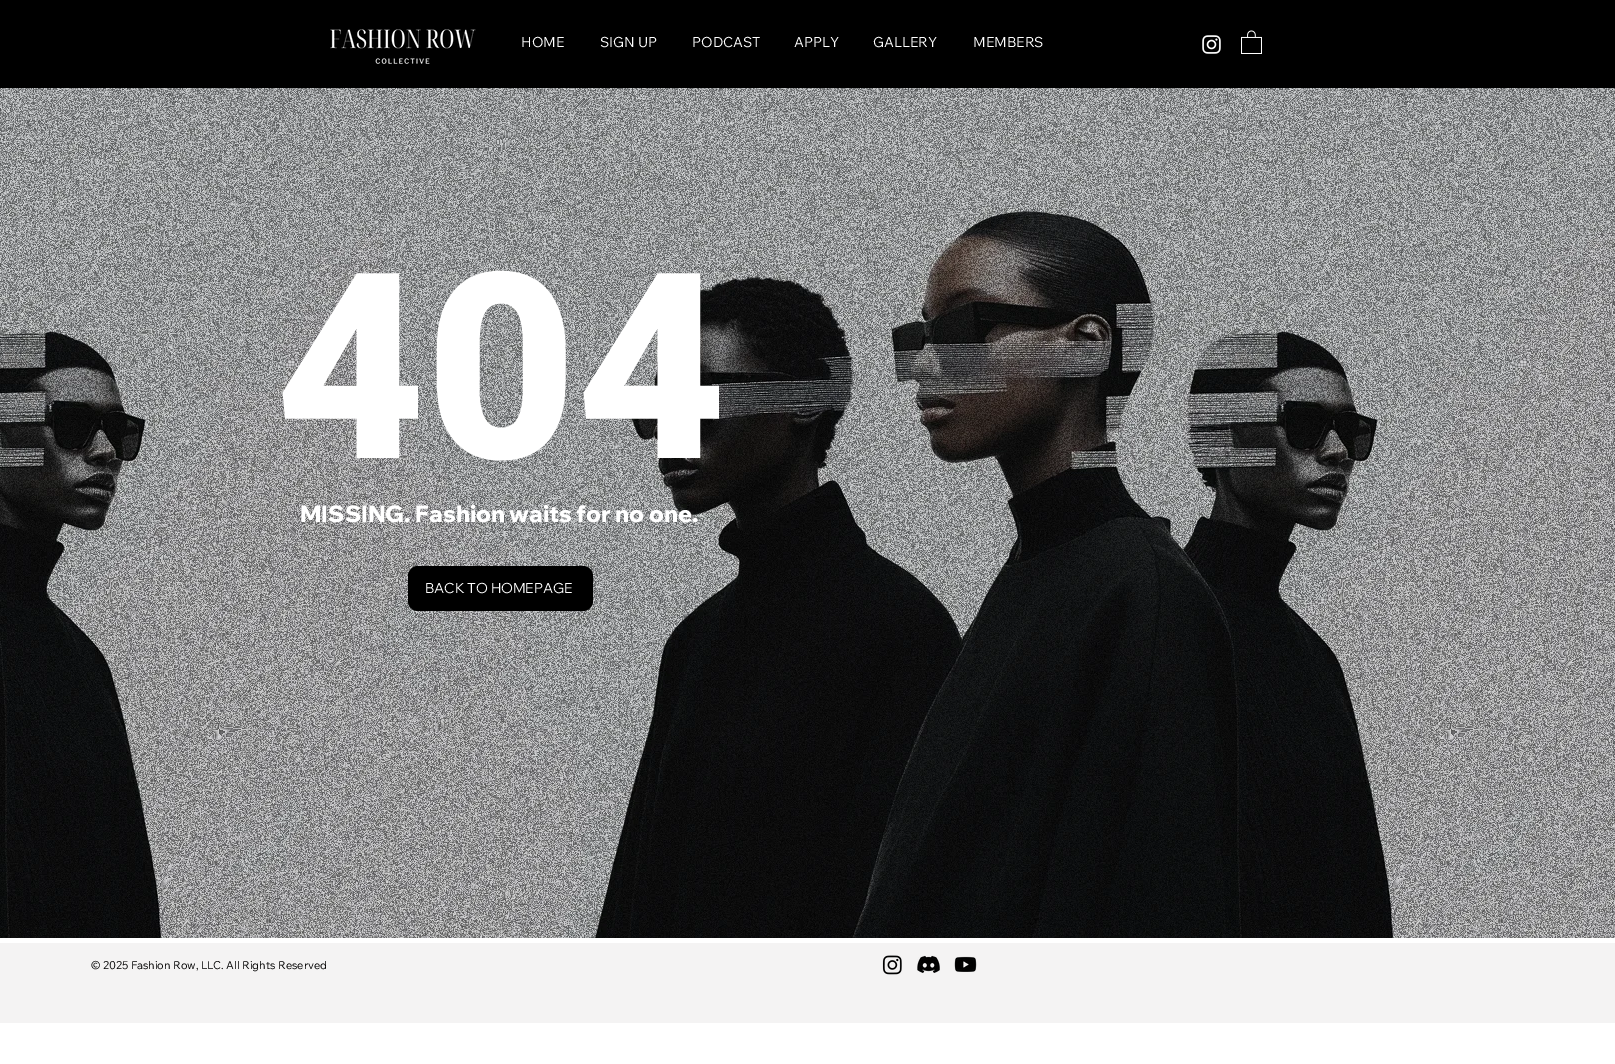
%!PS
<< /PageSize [1615 1064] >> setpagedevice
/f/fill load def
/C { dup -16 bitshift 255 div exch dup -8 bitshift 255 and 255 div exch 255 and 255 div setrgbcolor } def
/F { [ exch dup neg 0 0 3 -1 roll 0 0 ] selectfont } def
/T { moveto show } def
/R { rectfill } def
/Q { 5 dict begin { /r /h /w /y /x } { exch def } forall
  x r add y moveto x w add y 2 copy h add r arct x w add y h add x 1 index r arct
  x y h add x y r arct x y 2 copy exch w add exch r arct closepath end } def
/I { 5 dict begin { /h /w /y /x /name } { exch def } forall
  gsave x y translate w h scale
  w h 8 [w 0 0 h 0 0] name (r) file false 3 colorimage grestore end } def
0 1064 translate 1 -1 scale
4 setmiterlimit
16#FFFFFF C
0 0 1615 1064 R
16#000000 C
0 0 1615 88 R
(1.rgb) 330 29 146 35 I
/WixMadeforText-Regular 14 F
16#FFFFFF C
(HOME) 521 47 T
(SIGN UP) 600 47 T
(PODCAST) 692 47 T
(APPLY) 794 47 T
(GALLERY) 873 47 T
(MEMBERS) 973 47 T
(2.rgb) 1202 35 19 19 I
(3.rgb) 1241 30 21 24 I
(4.rgb) 0 88 1615 850 I
/Roboto-Black 260 F
(404) 275 458 T
/WixMadeforDisplay-ExtraBold 23 F
(MISSING. Fashion waits for no one.) 300 522 T
16#000000 C
408 566 185 45 10 Q f
/WixMadeforDisplay-Regular 14 F
16#FFFFFF C
(BACK TO HOMEPAGE) 425 593 T
16#F4F3F3 C
0 943 1615 80 R
/WixMadeforText-Regular 11 F
16#000000 C
(© 2025 Fashion Row, LLC. All Rights Reserved) 91 969 T
(5.rgb) 882 955 20 20 I
(6.rgb) 917 955 23 18 I
(7.rgb) 954 956 23 16 I
showpage
